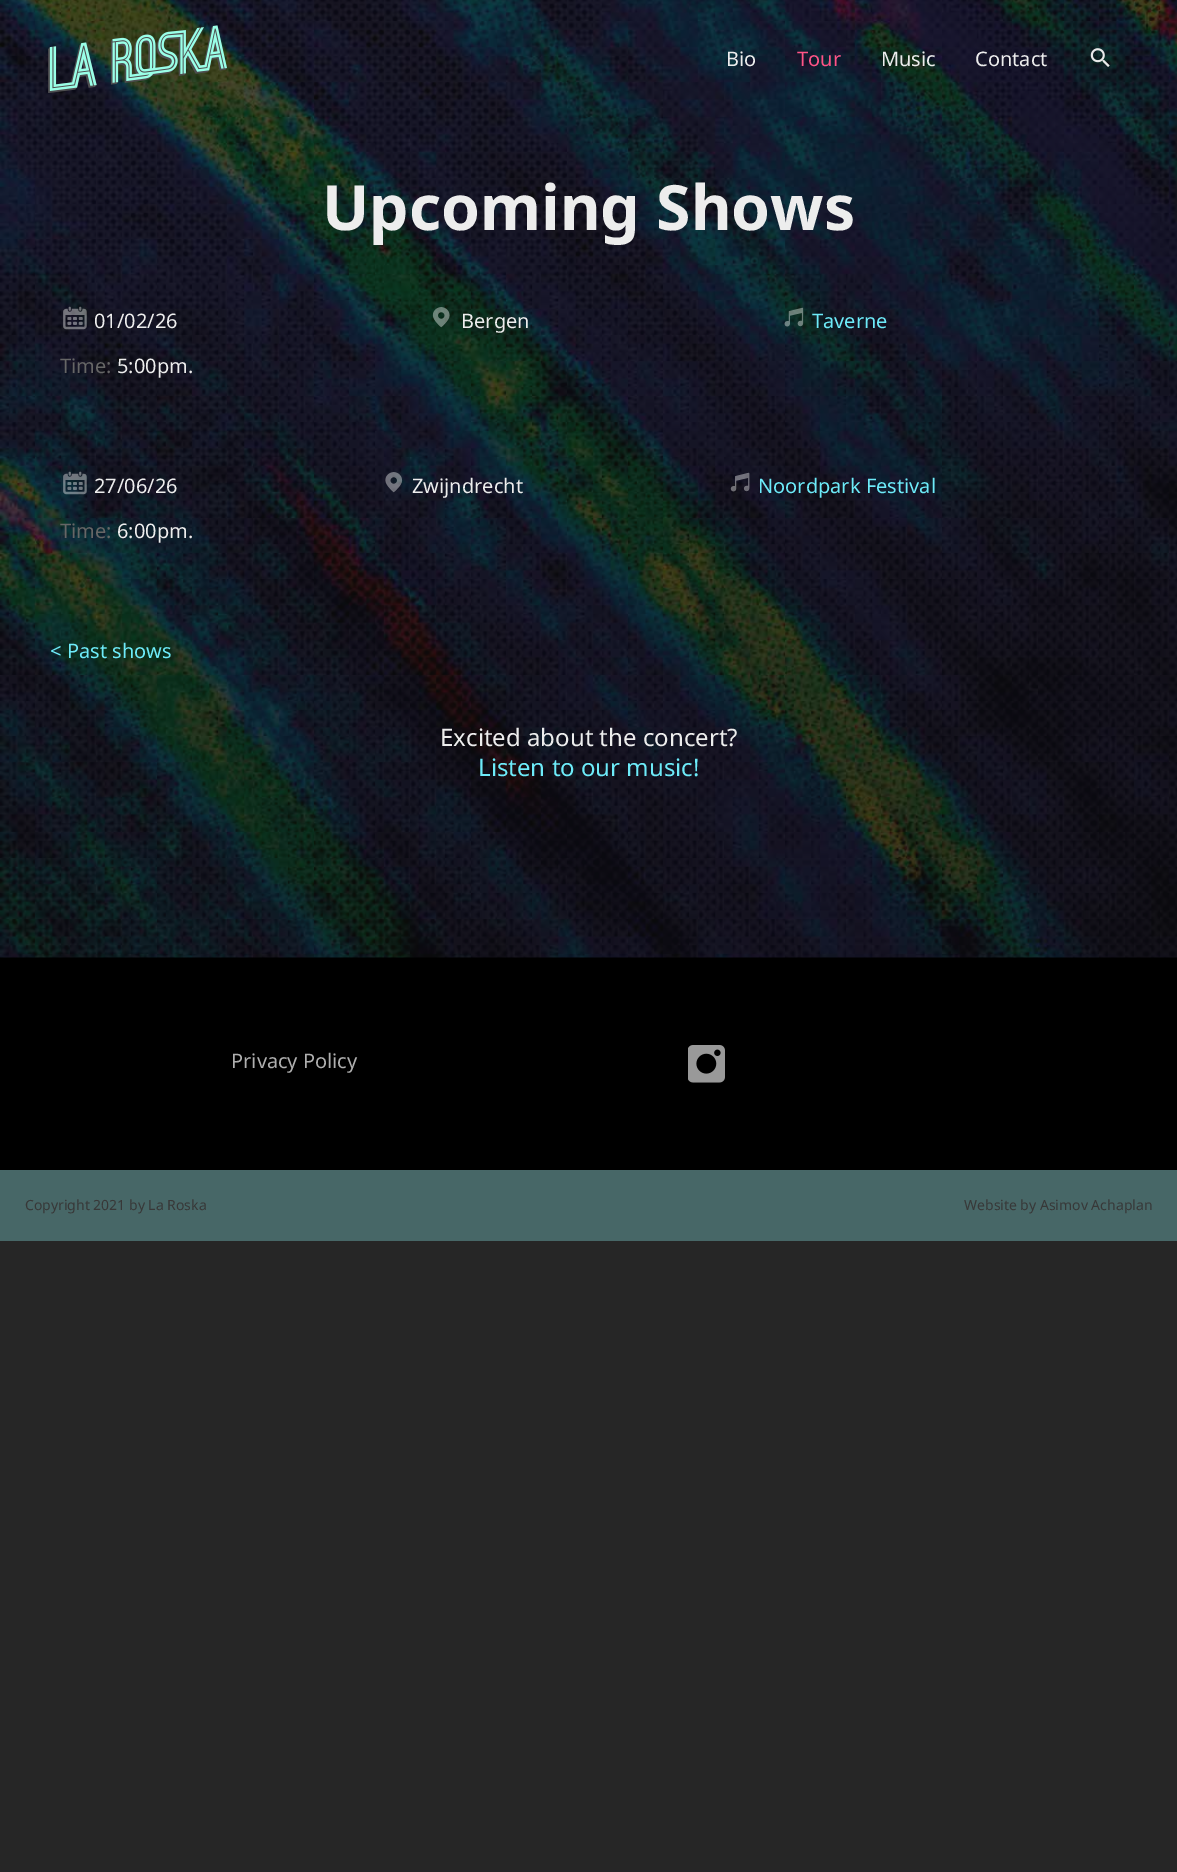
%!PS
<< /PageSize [1177 1872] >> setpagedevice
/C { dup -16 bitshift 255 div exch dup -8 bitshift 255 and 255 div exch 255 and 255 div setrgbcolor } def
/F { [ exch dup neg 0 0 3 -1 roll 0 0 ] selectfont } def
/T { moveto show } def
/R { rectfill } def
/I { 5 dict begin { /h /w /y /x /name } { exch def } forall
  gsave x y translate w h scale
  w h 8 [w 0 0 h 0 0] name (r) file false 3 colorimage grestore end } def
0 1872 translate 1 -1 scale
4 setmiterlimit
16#262626 C
0 0 1177 1872 R
16#000000 C
0 0 1177 1170 R
(3.rgb) 0 0 1177 958 I
(1.rgb) 48 25 179 68 I
/NotoSans-Regular 20 F
16#EDEDED C
(Bio) 726 66 T
16#FF5487 C
(Tour) 797 66 T
16#EDEDED C
(Music) 881 66 T
(Contact) 975 66 T
(2.rgb) 1090 48 20 19 I
/NotoSans-Bold 62.5 F
(Upcoming Shows) 322 230 T
(4.rgb) 63 306 24 24 I
/NotoSans-Regular 20 F
(01/02/26) 94 328 T
(5.rgb) 432 307 18 21 I
(Bergen) 461 328 T
(6.rgb) 784 307 20 20 I
16#6DEBF9 C
(Taverne) 812 328 T
16#666666 C
(Time:) 60 373 T
16#EDEDED C
(5:00pm.) 117 373 T
(7.rgb) 63 471 24 24 I
(27/06/26) 94 493 T
(8.rgb) 385 472 18 21 I
(Zwijndrecht) 412 493 T
(9.rgb) 730 472 20 20 I
16#6DEBF9 C
(Noordpark Festival) 758 493 T
16#666666 C
(Time:) 60 538 T
16#EDEDED C
(6:00pm.) 117 538 T
16#6DEBF9 C
(< Past shows) 50 658 T
/NotoSans-Regular 24 F
16#EDEDED C
(Excited about the concert?) 440 746 T
16#6DEBF9 C
(Listen to our music!) 478 776 T
/NotoSans-Regular 20 F
16#AFAFAF C
(Privacy Policy) 231 1068 T
(10.rgb) 688 1045 37 38 I
16#476767 C
0 1170 1177 71 R
/NotoSans-Regular 14 F
16#383838 C
(Copyright 2021 by La Roska) 25 1210 T
(Website by Asimov Achaplan) 964 1210 T
showpage
